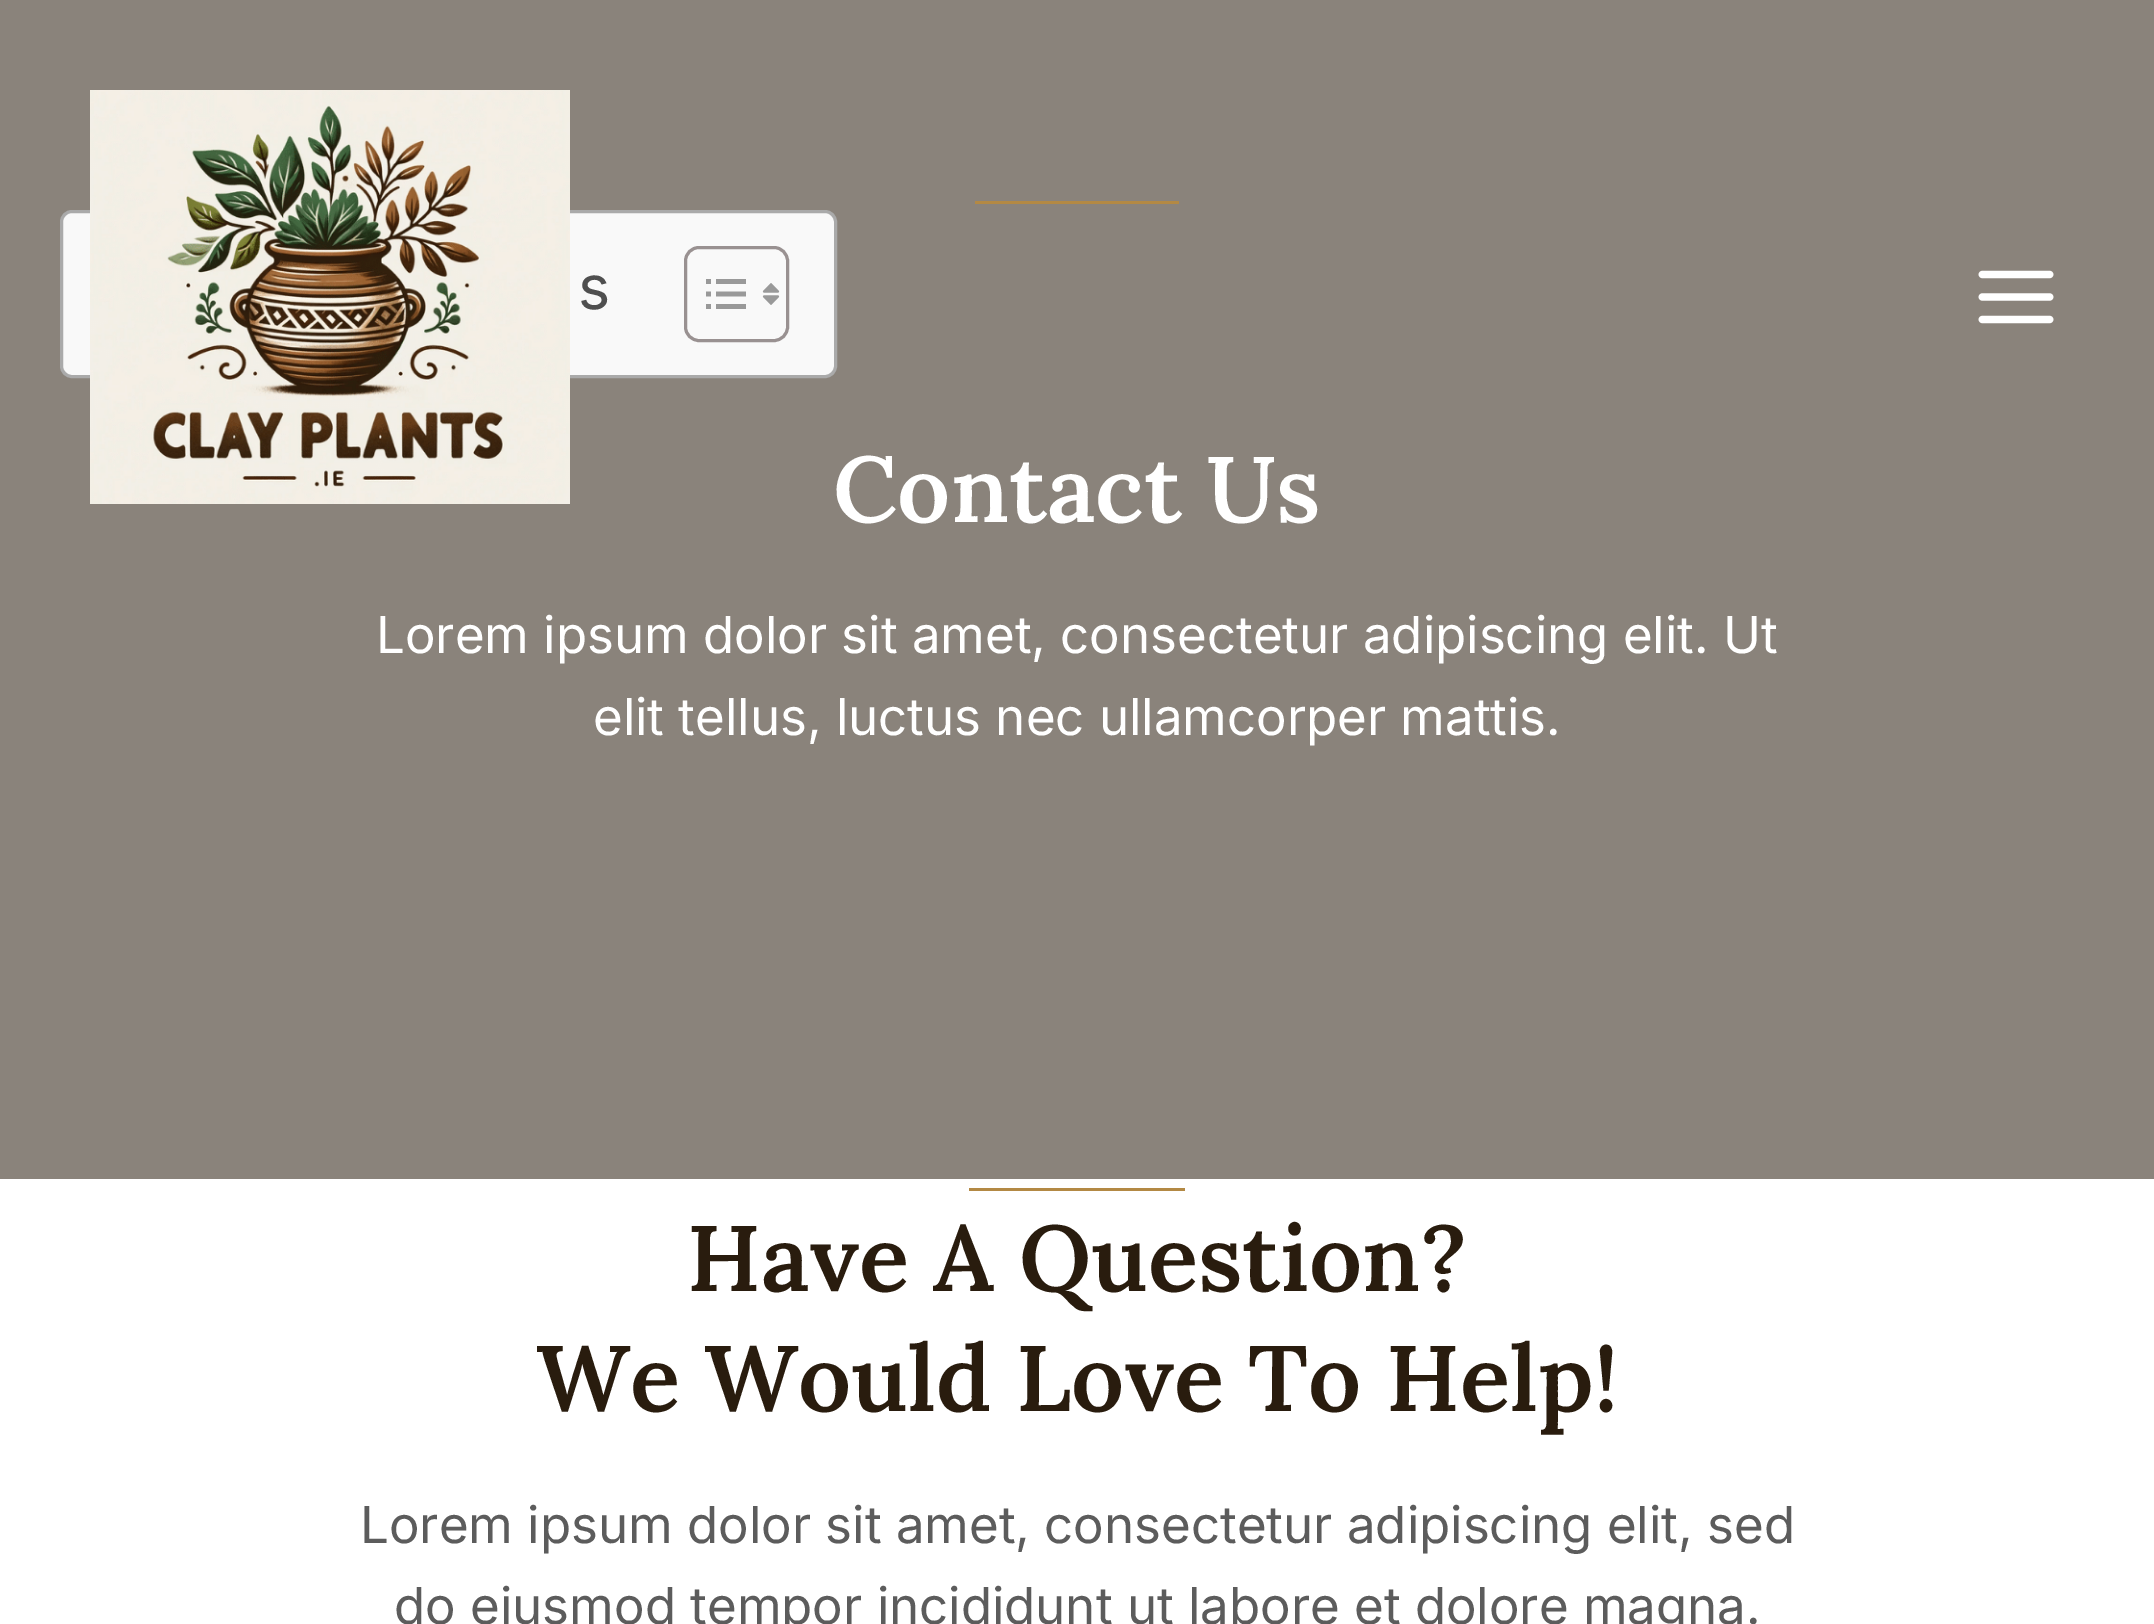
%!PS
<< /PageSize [2154 1624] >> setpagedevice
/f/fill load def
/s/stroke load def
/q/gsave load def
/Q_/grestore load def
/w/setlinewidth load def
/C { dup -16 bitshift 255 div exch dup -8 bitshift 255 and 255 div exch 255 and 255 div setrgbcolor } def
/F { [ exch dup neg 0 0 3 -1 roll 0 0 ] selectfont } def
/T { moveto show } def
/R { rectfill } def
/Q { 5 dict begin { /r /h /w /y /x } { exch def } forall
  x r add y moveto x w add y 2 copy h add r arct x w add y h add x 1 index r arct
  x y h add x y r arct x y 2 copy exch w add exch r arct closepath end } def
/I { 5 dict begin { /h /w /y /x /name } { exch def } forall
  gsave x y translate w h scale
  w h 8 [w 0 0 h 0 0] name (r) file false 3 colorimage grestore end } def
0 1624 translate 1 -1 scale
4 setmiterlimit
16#FFFFFF C
0 0 2154 1624 R
16#8A837B C
0 0 2154 1179 R
16#F9F9F9 C
61.5 211.5 774 165 10.5 Q q f Q_
16#AAAAAA C
3 w
s
(1.rgb) 90 90 480 414 I
(2.rgb) 1978 270 76 54 I
16#B38944 C
975 201 204 3 R
/Inter-Regular 61 F
16#4F4F4F C
(s) 578 309 T
16#999191 C
685.5 247.5 102 93 13.5 Q s
(3.rgb) 706 279 40 30 I
(4.rgb) 762 283 18 22 I
/Lora-SemiBold 93 F
16#FFFFFF C
(Contact Us) 833 522 T
/Inter-Regular 51 F
(Lorem ipsum dolor sit amet, consectetur adipiscing elit. Ut) 376 653 T
(elit tellus, luctus nec ullamcorper mattis.) 593 735 T
16#B38944 C
969 1188 216 3 R
/Lora-SemiBold 93 F
16#291C0E C
(Have A Question?) 687 1291 T
(We Would Love To Help!) 536 1411 T
/Inter-Regular 51 F
16#5C5C5C C
(Lorem ipsum dolor sit amet, consectetur adipiscing elit, sed) 360 1543 T
(do eiusmod tempor incididunt ut labore et dolore magna.) 394 1624 T
showpage
